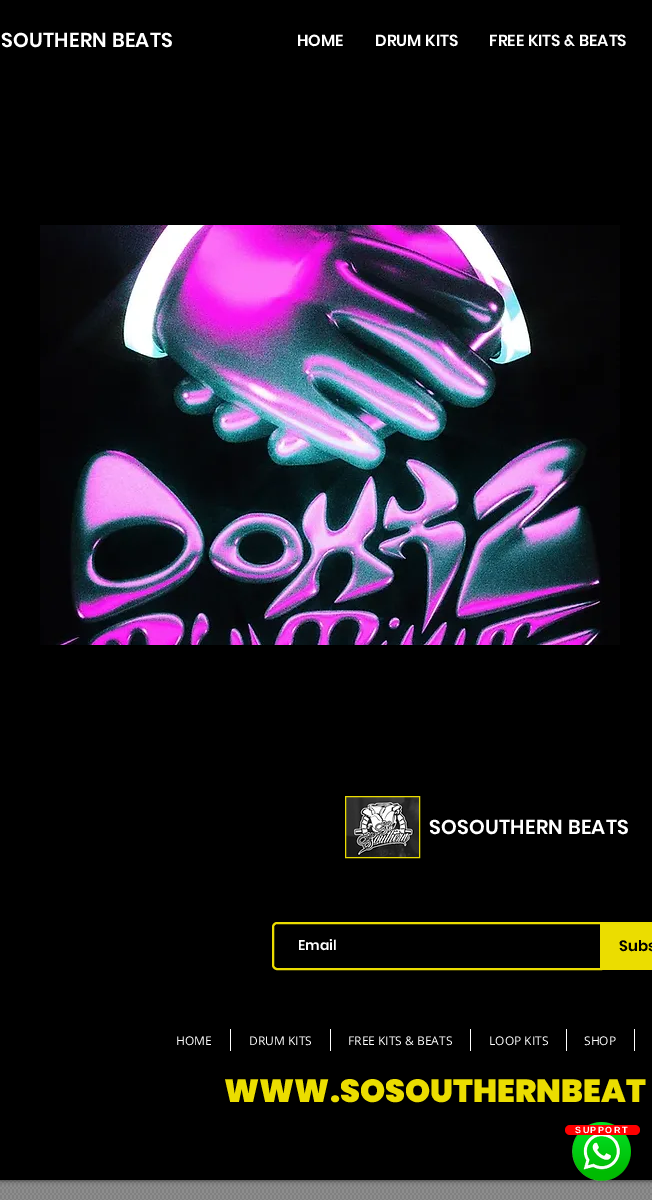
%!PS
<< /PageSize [652 1200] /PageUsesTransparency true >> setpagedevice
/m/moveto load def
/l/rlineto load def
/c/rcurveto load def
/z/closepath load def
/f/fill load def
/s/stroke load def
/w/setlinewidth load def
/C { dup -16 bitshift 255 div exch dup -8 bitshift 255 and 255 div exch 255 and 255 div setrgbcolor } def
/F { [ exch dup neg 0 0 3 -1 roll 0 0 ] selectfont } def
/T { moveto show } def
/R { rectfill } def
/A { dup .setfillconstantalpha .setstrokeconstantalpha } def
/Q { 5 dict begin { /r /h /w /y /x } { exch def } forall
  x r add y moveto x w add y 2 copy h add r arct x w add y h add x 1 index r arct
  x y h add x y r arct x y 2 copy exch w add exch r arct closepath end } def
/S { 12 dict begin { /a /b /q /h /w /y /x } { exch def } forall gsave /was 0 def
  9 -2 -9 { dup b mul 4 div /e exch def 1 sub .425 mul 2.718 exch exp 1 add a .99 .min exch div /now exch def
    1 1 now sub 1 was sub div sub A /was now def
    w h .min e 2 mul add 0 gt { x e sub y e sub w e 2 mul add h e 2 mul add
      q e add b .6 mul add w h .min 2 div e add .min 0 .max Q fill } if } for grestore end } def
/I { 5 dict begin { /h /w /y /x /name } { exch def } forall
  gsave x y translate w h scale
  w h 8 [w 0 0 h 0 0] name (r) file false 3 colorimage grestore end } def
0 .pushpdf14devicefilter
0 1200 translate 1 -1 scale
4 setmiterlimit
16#808080 C
0 0 652 1200 R
16#000000 C
0 0 652 774 R
/Poppins-SemiBold 20 F
16#FFFFFF C
1 47 m .25 0 (SOUTHERN BEATS) ashow
/Poppins-SemiBold 16 F
(HOME) 297 46 T
(DRUM KITS) 375 46 T
(FREE KITS & BEATS) 489 46 T
(1.rgb) 40 225 580 420 I
(3.rgb) 0 1180 652 20 I
16#000000 C
0 774 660 406 0 2.5 .7 S
0 774 652 406 R
(2.rgb) 346 797 73 60 I
16#EBDD00 C
345.5 796.5 74 61 rectstroke
/Poppins-SemiBold 20 F
16#FFFFFF C
429 834 m .25 0 (SOSOUTHERN BEATS) ashow
16#EBDD00 C
2 w
277 923 m 324 0 l 0 46 l -324 0 l -2 0 -4 -2 -4 -4 c 0 -38 l 0 -2 2 -4 4 -4 c z s
/Poppins-SemiBold 14 F
16#FFFFFF C
(Email) 298 950 T
16#EBDD00 C
602 922 50 48 R
/Poppins-SemiBold 15 F
16#000000 C
(Subs) 619 951 T
/OpenSans-Regular 12 F
16#FFFFFF C
(HOME) 176 1045 T
230 1029 1 22 R
(DRUM KITS) 249 1045 T
330 1029 1 22 R
(FREE KITS & BEATS) 348 1045 T
470 1029 1 22 R
(LOOP KITS) 489 1045 T
566 1029 1 22 R
(SHOP) 584 1045 T
634 1029 1 22 R
/Poppins-Black 32 F
16#EBDD00 C
(WWW.SOSOUTHERNBEAT) 224 1102 T
(4.rgb) 572 1122 59 59 I
16#FF0000 C
565 1125 75 10 5 Q f
/LiberationSans-Bold 9 F
16#FFFFFF C
575 1133 m 1.5 0 (SUPPORT) ashow
.poppdf14devicefilter showpage
